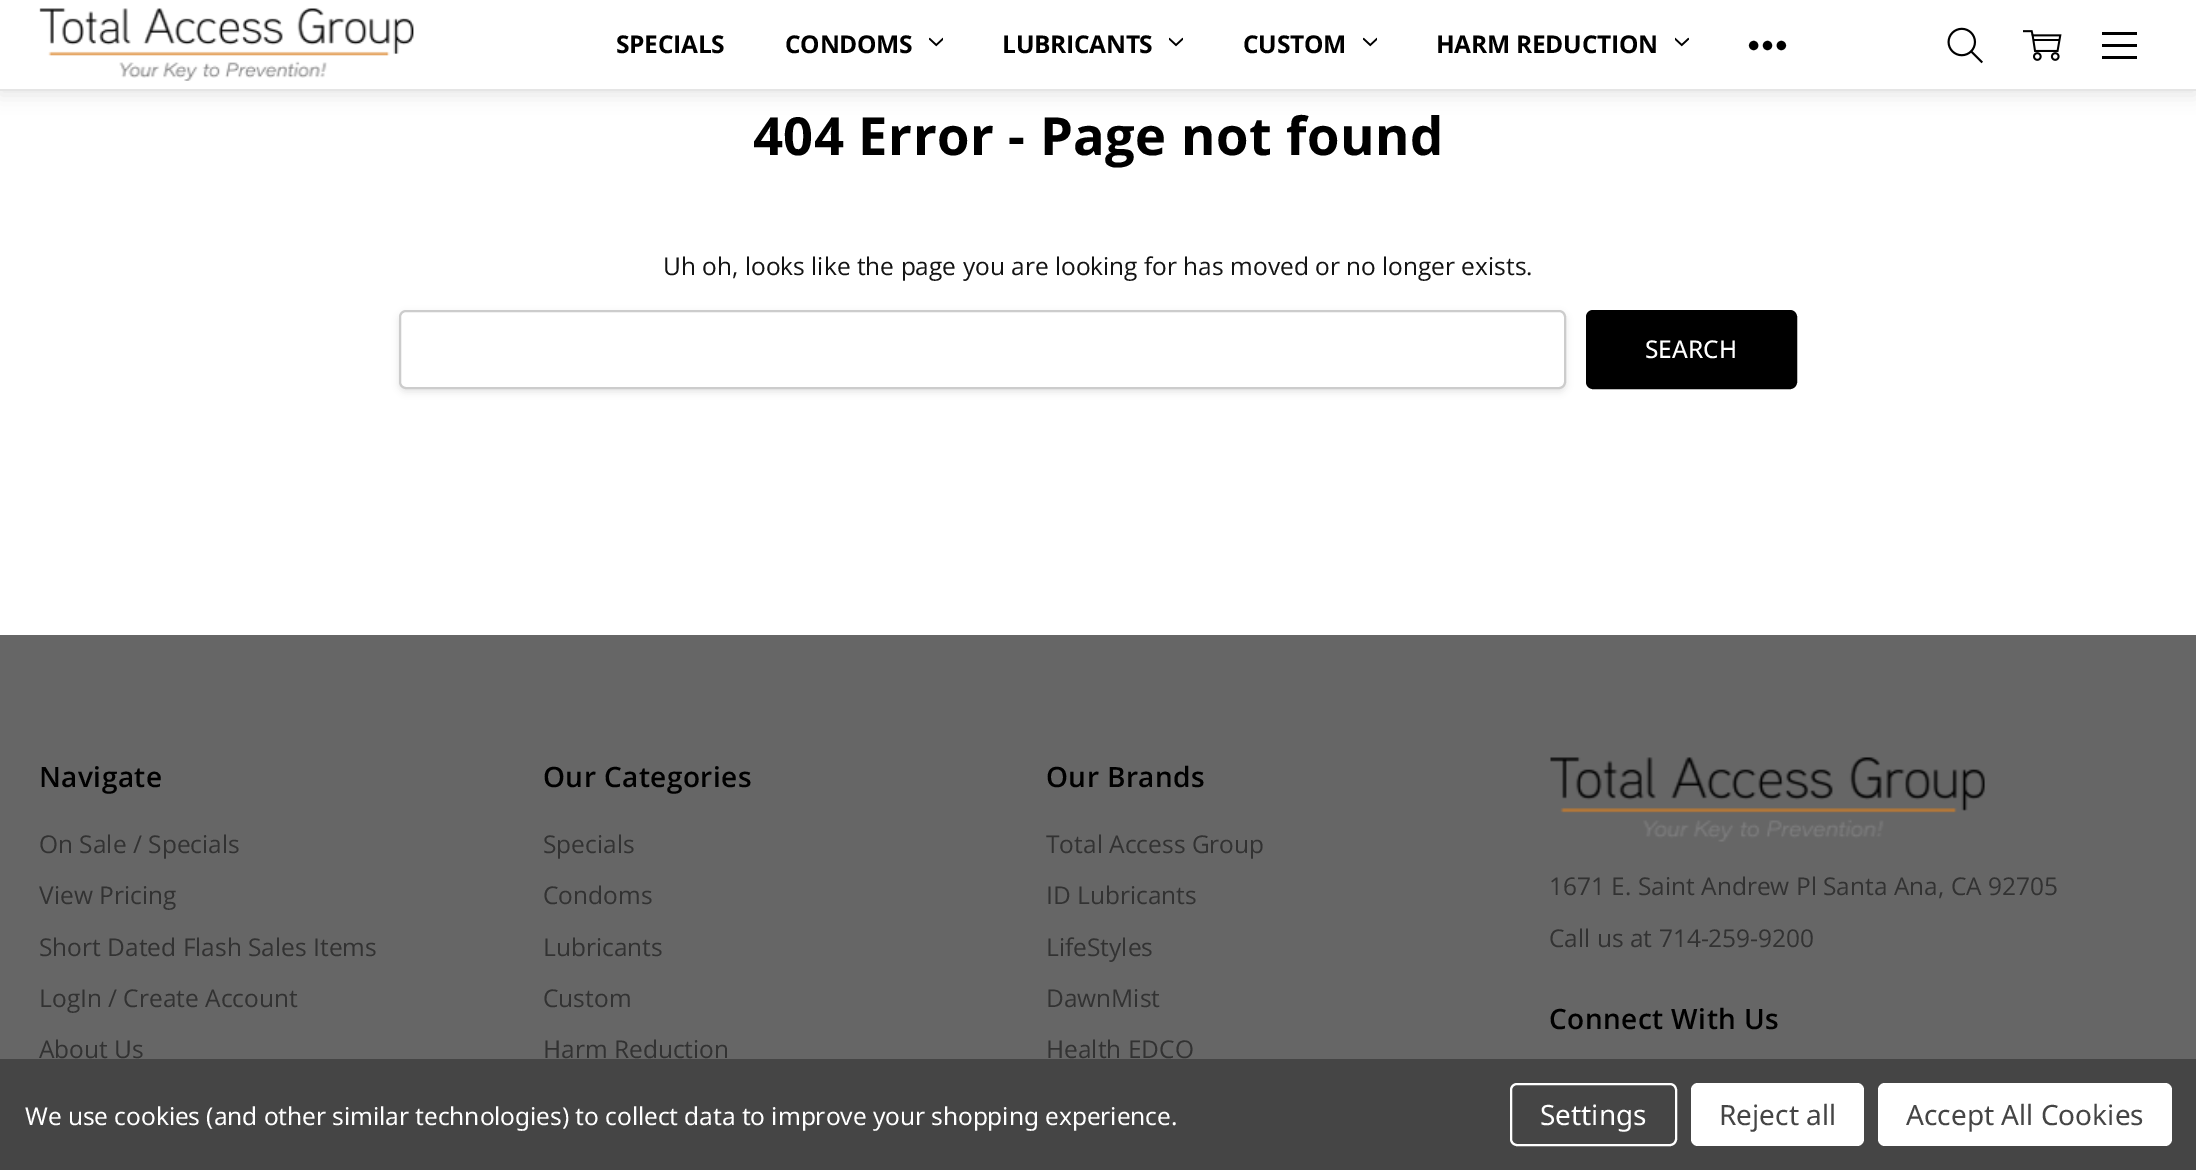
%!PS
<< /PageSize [2196 1170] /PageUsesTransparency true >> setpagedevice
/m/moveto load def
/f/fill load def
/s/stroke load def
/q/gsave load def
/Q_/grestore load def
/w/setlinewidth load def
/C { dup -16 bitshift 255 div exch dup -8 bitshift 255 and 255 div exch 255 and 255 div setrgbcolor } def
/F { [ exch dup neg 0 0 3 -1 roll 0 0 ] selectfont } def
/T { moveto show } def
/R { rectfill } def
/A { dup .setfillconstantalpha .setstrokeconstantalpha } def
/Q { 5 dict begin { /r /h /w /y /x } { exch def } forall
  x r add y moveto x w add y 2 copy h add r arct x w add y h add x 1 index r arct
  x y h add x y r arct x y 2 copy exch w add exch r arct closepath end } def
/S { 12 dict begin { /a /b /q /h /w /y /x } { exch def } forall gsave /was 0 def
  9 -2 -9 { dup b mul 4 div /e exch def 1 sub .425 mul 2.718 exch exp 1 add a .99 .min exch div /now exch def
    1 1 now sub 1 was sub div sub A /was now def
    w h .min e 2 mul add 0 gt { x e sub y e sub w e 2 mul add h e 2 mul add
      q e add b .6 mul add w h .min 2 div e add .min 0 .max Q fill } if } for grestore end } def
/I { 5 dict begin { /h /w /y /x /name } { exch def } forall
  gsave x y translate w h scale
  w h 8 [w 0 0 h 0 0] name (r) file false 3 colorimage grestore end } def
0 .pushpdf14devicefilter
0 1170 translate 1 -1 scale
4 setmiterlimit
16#FFFFFF C
0 0 2196 1170 R
16#000000 C
0 4 2196 91 0 9 .1 S
16#FFFFFF C
0 0 2196 89 R
16#E5E5E5 C
0 89 2196 2 R
(1.rgb) 39 8 375 73 I
/OpenSans-Bold 24.5 F
16#000000 C
616 53 m -.25 0 (SPECIALS) ashow
785 53 m -.25 0 (CONDOMS) ashow
(2.rgb) 929 37 14 10 I
1002 53 m -.25 0 (LUBRICANTS) ashow
(3.rgb) 1169 37 14 10 I
1243 53 m -.25 0 (CUSTOM) ashow
(2.rgb) 1363 37 14 10 I
1436 53 m -.25 0 (HARM REDUCTION) ashow
(4.rgb) 1675 37 14 10 I
(5.rgb) 1748 40 39 11 I
(6.rgb) 1947 27 36 37 I
(7.rgb) 2023 30 39 31 I
2102 32 35 3 R
2102 44 35 3 R
2102 56 35 3 R
/OpenSans-Bold 52.5 F
753 155 m .45 0 (404 Error - Page not found) ashow
/OpenSans-Regular 24.5 F
16#131313 C
(Uh oh, looks like the page you are looking for has moved or no longer exists.) 663 275 T
16#000000 C
399 313 1167 79 7 3.5 .1 S
16#FFFFFF C
400 311 1165 77 6 Q q f Q_
16#CCCCCC C
2 w
s
16#000000 C
1587 311 209 77 6 Q q f Q_
s
/OpenSans-Medium 24.5 F
16#FFFFFF C
(SEARCH) 1645 358 T
16#666666 C
0 635 2196 424 R
/OpenSans-SemiBold 28 F
16#000000 C
39 787 m .45 0 (Navigate) ashow
/OpenSans-Regular 24.5 F
16#323232 C
(On Sale / Specials) 39 853 T
(View Pricing) 39 904 T
(Short Dated Flash Sales Items) 39 956 T
(LogIn / Create Account) 39 1007 T
(About Us) 39 1058 T
/OpenSans-SemiBold 28 F
16#000000 C
543 787 m .45 0 (Our Categories) ashow
/OpenSans-Regular 24.5 F
16#323232 C
(Specials) 543 853 T
(Condoms) 543 904 T
(Lubricants) 543 956 T
(Custom) 543 1007 T
(Harm Reduction) 543 1058 T
/OpenSans-SemiBold 28 F
16#000000 C
1046 787 m .45 0 (Our Brands) ashow
/OpenSans-Regular 24.5 F
16#323232 C
(Total Access Group) 1046 853 T
(ID Lubricants) 1046 904 T
(LifeStyles) 1046 956 T
(DawnMist) 1046 1007 T
(Health EDCO) 1046 1058 T
(8.rgb) 1550 757 435 85 I
(1671 E. Saint Andrew Pl Santa Ana, CA 92705) 1549 895 T
(Call us at 714-259-9200) 1549 947 T
/OpenSans-SemiBold 28 F
16#000000 C
1549 1029 m .45 0 (Connect With Us) ashow
16#454545 C
0 1059 2196 111 R
/NotoSans-Regular 24.5 F
16#FFFFFF C
25 1125 m -.09 0 (We use cookies \(and other similar technologies\) to collect data to improve your shopping experience.) ashow
1511 1084 165 61 6 Q s
/NotoSans-Regular 28 F
(Settings) 1540 1125 T
1691 1083 173 63 7 Q f
16#454545 C
(Reject all) 1719 1125 T
16#FFFFFF C
1878 1083 294 63 7 Q f
16#454545 C
(Accept All Cookies) 1906 1125 T
.poppdf14devicefilter showpage
